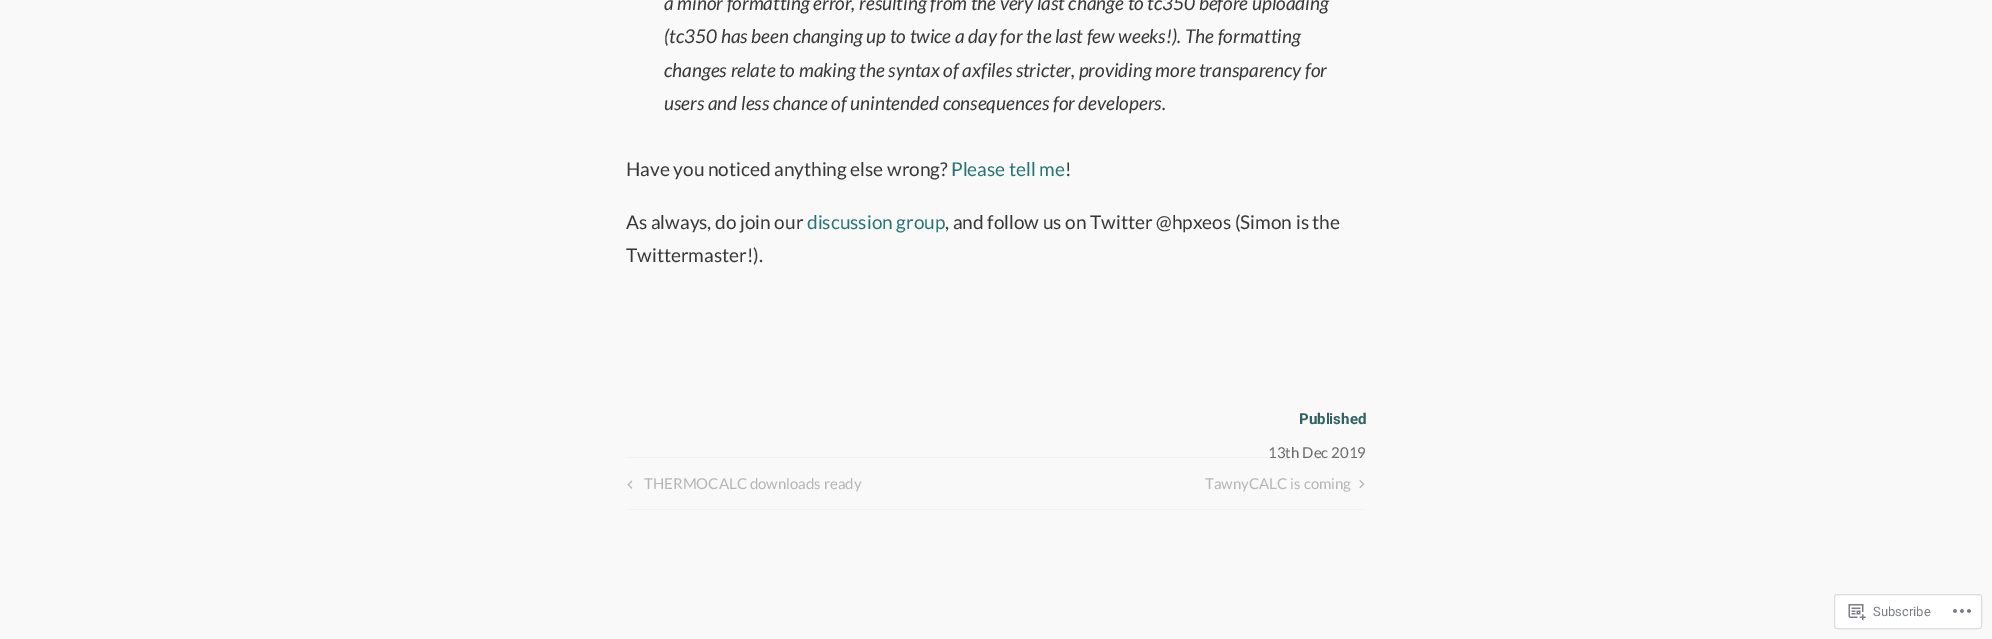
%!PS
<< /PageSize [1992 639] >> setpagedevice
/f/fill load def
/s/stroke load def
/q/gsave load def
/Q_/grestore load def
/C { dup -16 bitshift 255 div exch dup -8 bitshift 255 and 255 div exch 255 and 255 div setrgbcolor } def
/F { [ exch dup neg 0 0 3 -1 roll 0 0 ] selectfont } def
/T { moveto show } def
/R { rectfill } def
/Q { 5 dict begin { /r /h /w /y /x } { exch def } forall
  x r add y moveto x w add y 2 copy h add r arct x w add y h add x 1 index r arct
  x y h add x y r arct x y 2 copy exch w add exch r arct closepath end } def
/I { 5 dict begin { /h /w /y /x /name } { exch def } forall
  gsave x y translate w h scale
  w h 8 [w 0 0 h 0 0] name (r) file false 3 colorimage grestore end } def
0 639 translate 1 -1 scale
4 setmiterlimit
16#F9F9F9 C
0 0 1992 639 R
/Lato-Italic 19 F
16#383838 C
(a minor formatting error, resulting from the very last change to tc350 before uploading) 664 10 T
(\(tc350 has been changing up to twice a day for the last few weeks!\). The formatting) 664 43 T
(changes relate to making the syntax of axfiles stricter, providing more transparency for) 664 77 T
(users and less chance of unintended consequences for developers.) 664 110 T
/Lato-Regular 19 F
(Have you noticed anything else wrong?) 626 176 T
16#287575 C
(Please tell me) 951 176 T
16#383838 C
(!) 1065 176 T
(As always, do join our) 626 229 T
16#287575 C
(discussion group) 807 229 T
16#383838 C
(, and follow us on Twitter @hpxeos \(Simon is the) 945 229 T
(Twittermaster!\).) 626 262 T
/Roboto-Bold 15 F
16#306363 C
(Published) 1299 424 T
16#F2F2F2 C
626 457 740 1 R
/Lato-Regular 15 F
16#6B6B6B C
(13th Dec 2019) 1268 458 T
16#F2F2F2 C
626 509 740 1 R
(1.rgb) 627 480 6 9 I
16#B6B6B4 C
(THERMOCALC downloads ready) 644 489 T
(TawnyCALC is coming) 1205 489 T
(2.rgb) 1359 480 6 9 I
16#FFFFFF C
1834.5 594.5 147 34 2.5 Q q f Q_
16#DDDDDF C
s
(3.rgb) 1848 604 18 17 I
/Roboto-Regular 13 F
16#7B7F84 C
(Subscribe) 1873 616 T
(4.rgb) 1953 609 18 4 I
showpage
